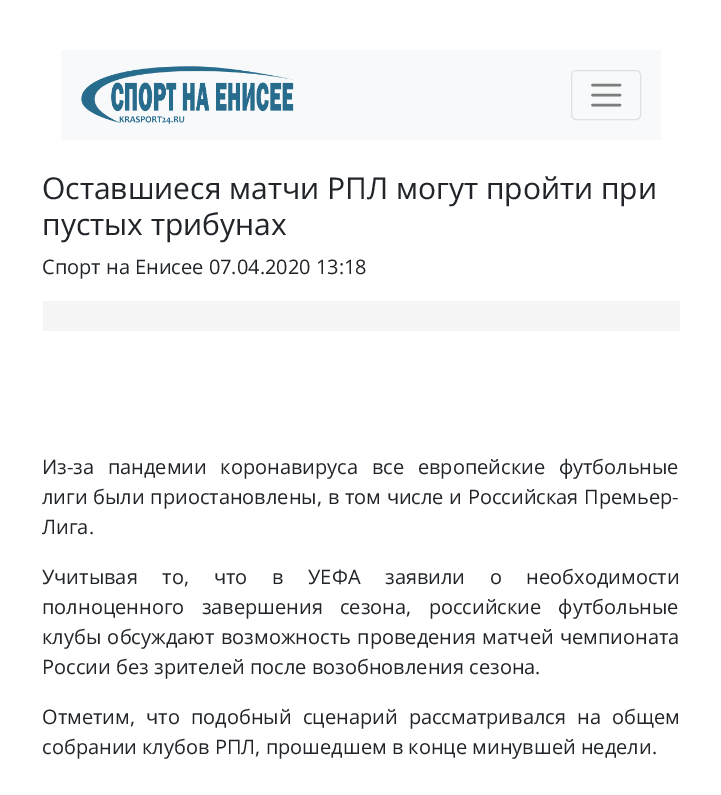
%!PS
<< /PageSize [721 795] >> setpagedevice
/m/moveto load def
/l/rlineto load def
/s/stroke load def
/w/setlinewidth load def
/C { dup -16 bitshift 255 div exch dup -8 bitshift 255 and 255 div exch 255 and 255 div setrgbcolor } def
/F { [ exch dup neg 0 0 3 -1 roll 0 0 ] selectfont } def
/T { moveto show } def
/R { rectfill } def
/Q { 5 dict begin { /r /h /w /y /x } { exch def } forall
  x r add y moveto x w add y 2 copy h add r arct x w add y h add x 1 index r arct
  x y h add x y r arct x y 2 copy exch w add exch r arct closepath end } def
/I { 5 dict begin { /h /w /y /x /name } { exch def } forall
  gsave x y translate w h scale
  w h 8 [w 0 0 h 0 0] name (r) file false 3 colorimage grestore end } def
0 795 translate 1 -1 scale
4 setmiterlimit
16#FFFFFF C
0 0 721 795 R
16#F8F9FA C
61 50 600 90 R
(1.rgb) 81 66 213 58 I
16#DFE0E1 C
571.5 70.5 69 49 4.5 Q s
16#7C7D7D C
2.5 w
1 setlinecap
592.5 85 m 27.5 0 l 592.5 95 m 27.5 0 l 592.5 105 m 27.5 0 l s
/OpenSans-Regular 30 F
16#212529 C
(Оставшиеся матчи РПЛ могут пройти при) 42 199 T
(пустых трибунах) 42 235 T
/OpenSans-Regular 20 F
(Спорт на Енисее 07.04.2020 13:18) 42 274 T
16#F5F5F5 C
43 301 637 30 R
16#212529 C
42 474 m 8.5 0 32 (Из-за пандемии коронавируса все европейские футбольные) widthshow
42 504 m .5 0 32 (лиги были приостановлены, в том числе и Российская Премьер-) widthshow
(Лига.) 42 534 T
42 584 m 19.5 0 32 (Учитывая то, что в УЕФА заявили о необходимости) widthshow
42 614 m 12 0 32 (полноценного завершения сезона, российские футбольные) widthshow
42 644 m 1.25 0 32 (клубы обсуждают возможность проведения матчей чемпионата) widthshow
(России без зрителей после возобновления сезона.) 42 674 T
42 724 m 6 0 32 (Отметим, что подобный сценарий рассматривался на общем) widthshow
(собрании клубов РПЛ, прошедшем в конце минувшей недели.) 42 754 T
showpage
